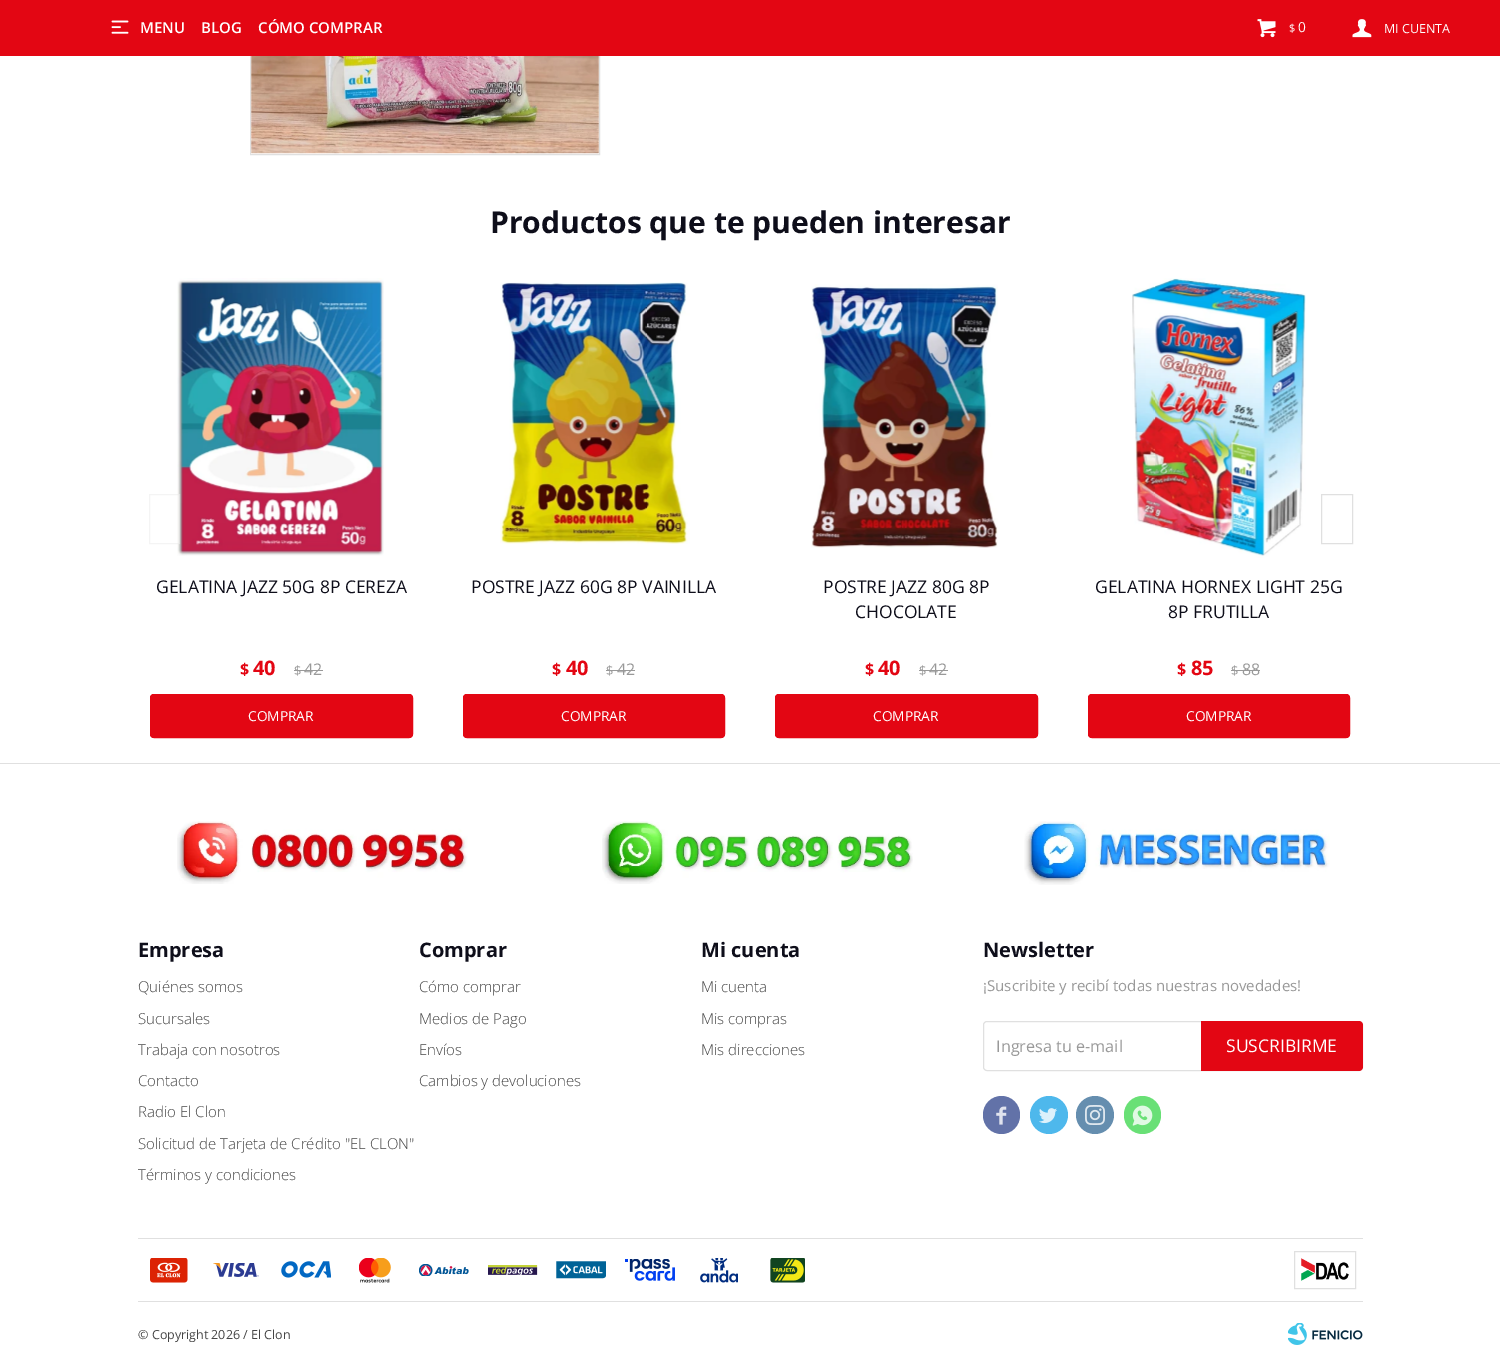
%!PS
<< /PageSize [1500 1365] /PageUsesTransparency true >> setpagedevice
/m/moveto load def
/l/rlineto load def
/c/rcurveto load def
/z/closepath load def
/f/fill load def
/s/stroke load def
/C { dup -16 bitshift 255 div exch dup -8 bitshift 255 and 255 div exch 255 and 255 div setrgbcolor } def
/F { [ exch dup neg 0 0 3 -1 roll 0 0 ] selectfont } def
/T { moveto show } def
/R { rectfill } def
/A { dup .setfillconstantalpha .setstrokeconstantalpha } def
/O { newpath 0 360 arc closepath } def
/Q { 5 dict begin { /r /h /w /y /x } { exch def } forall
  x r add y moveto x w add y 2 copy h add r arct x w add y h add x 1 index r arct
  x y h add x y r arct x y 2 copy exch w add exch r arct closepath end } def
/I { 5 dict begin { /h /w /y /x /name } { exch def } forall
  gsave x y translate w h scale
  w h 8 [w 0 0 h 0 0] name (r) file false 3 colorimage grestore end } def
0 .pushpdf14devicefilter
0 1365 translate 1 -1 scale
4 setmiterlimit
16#FFFFFF C
0 0 1500 1365 R
16#E0E0E0 C
250.5 -.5 349 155 rectstroke
16#E30613 C
0 0 1500 56 R
(1.rgb) 111 20 18 14 I
/OpenSans-SemiBold 15 F
16#FFFFFF C
(MENU) 140 33 T
(BLOG) 201 33 T
(CÓMO COMPRAR) 258 33 T
(2.rgb) 1257 19 19 19 I
/OpenSans-Regular 11 F
($) 1289 32 T
/OpenSans-Regular 13.75 F
(0) 1298 32 T
(3.rgb) 1352 19 20 19 I
/OpenSans-Regular 12.5 F
(MI CUENTA) 1384 33 T
(4.rgb) 251 56 348 98 I
/OpenSans-Bold 30 F
16#0E0E1A C
(Productos que te pueden interesar) 490 233 T
(5.rgb) 177 278 207 278 I
0.35 A
16#FFFFFF C
178 494 2 50 R
16#E0E0E0 C
149.5 494.5 30 49 rectstroke
1 A
1321.5 494.5 31 49 rectstroke
/OpenSans-Regular 17.5 F
16#0E0E1A C
(GELATINA JAZZ 50G 8P CEREZA) 156 593 T
/OpenSans-Bold 16 F
16#E30613 C
($) 240 675 T
/OpenSans-Bold 20 F
(40) 253 675 T
/OpenSans-Regular 13 F
16#999999 C
($) 294 675 T
/OpenSans-Regular 16 F
(42) 304 675 T
294 670 29 1 R
16#E30613 C
150 694 263 44 4 Q f
150.5 694.5 262 43 3.5 Q s
/OpenSans-Regular 13.75 F
16#FFFFFF C
(COMPRAR) 248 721 T
(6.rgb) 500 282 190 262 I
/OpenSans-Regular 17.5 F
16#0E0E1A C
(POSTRE JAZZ 60G 8P VAINILLA) 471 593 T
/OpenSans-Bold 16 F
16#E30613 C
($) 552 675 T
/OpenSans-Bold 20 F
(40) 566 675 T
/OpenSans-Regular 13 F
16#999999 C
($) 606 675 T
/OpenSans-Regular 16 F
(42) 617 675 T
606 670 29 1 R
16#E30613 C
463 694 262 44 4 Q f
463.5 694.5 261 43 3.5 Q s
/OpenSans-Regular 13.75 F
16#FFFFFF C
(COMPRAR) 561 721 T
(7.rgb) 811 284 187 264 I
/OpenSans-Regular 17.5 F
16#0E0E1A C
(POSTRE JAZZ 80G 8P) 823 593 T
(CHOCOLATE) 855 618 T
/OpenSans-Bold 16 F
16#E30613 C
($) 865 675 T
/OpenSans-Bold 20 F
(40) 878 675 T
/OpenSans-Regular 13 F
16#999999 C
($) 919 675 T
/OpenSans-Regular 16 F
(42) 929 675 T
919 670 29 1 R
16#E30613 C
775 694 263 44 4 Q f
775.5 694.5 262 43 3.5 Q s
/OpenSans-Regular 13.75 F
16#FFFFFF C
(COMPRAR) 873 721 T
(8.rgb) 1132 278 174 280 I
/OpenSans-Regular 17.5 F
16#0E0E1A C
(GELATINA HORNEX LIGHT 25G) 1095 593 T
(8P FRUTILLA) 1168 618 T
/OpenSans-Bold 16 F
16#E30613 C
($) 1177 675 T
/OpenSans-Bold 20 F
(85) 1191 675 T
/OpenSans-Regular 13 F
16#999999 C
($) 1231 675 T
/OpenSans-Regular 16 F
(88) 1242 675 T
1231 670 29 1 R
16#E30613 C
1088 694 262 44 4 Q f
1088.5 694.5 261 43 3.5 Q s
/OpenSans-Regular 13.75 F
16#FFFFFF C
(COMPRAR) 1186 721 T
16#E0E0E0 C
0 763 1500 1 R
(9.rgb) 177 821 291 63 I
(10.rgb) 602 821 311 63 I
(11.rgb) 1024 821 306 64 I
/OpenSans-Bold 20 F
16#0E0E1A C
(Empresa) 138 957 T
/OpenSans-Light 15 F
16#454545 C
(Quiénes somos) 138 992 T
(Sucursales) 138 1024 T
(Trabaja con nosotros) 138 1055 T
(Contacto) 138 1086 T
(Radio El Clon) 138 1117 T
(Solicitud de Tarjeta de Crédito "EL CLON") 138 1149 T
(Términos y condiciones) 138 1180 T
/OpenSans-Bold 20 F
16#0E0E1A C
(Comprar) 419 957 T
/OpenSans-Light 15 F
16#454545 C
(Cómo comprar) 419 992 T
(Medios de Pago) 419 1024 T
(Envíos) 419 1055 T
(Cambios y devoluciones) 419 1086 T
/OpenSans-Bold 20 F
16#0E0E1A C
(Mi cuenta) 701 957 T
/OpenSans-Light 15 F
16#454545 C
(Mi cuenta) 701 992 T
(Mis compras) 701 1024 T
(Mis direcciones) 701 1055 T
/OpenSans-Bold 20 F
16#0E0E1A C
(Newsletter) 983 957 T
/OpenSans-Regular 15 F
16#999999 C
(¡Suscribite y recibí todas nuestras novedades!) 983 991 T
16#E0E0E0 C
983.5 1021.5 379 49 3.5 Q s
/OpenSans-Regular 16.25 F
16#999999 C
(Ingresa tu e-mail) 996 1052 T
16#E30613 C
1201 1021 m 158 0 l 2 0 4 2 4 4 c 0 42 l 0 2 -2 4 -4 4 c -158 0 l z f
/OpenSans-Regular 17.5 F
16#FFFFFF C
(SUSCRIBIRME) 1226 1052 T
16#6272A8 C
983 1096 37 38 18.5 Q f
(12.rgb) 996 1106 11 19 I
16#4EB8EC C
1049 1115 19 O f
(13.rgb) 1039 1108 18 16 I
16#658EAF C
1095 1115 19 O f
(14.rgb) 1085 1105 20 20 I
16#69E076 C
1124 1096 37 38 18.5 Q f
(15.rgb) 1132 1105 21 21 I
16#E0E0E0 C
138 1238 1225 1 R
(16.rgb) 150 1258 38 25 I
(17.rgb) 213 1263 46 14 I
(18.rgb) 281 1261 50 17 I
(19.rgb) 359 1258 32 25 I
(20.rgb) 419 1264 50 12 I
(21.rgb) 488 1265 50 10 I
(22.rgb) 556 1261 50 18 I
(23.rgb) 625 1259 50 22 I
(24.rgb) 700 1258 38 25 I
(25.rgb) 770 1258 35 25 I
1294.5 1251.5 61 37 rectstroke
(26.rgb) 1301 1258 48 23 I
138 1301 1225 1 R
/OpenSans-Regular 12.5 F
16#454545 C
(© Copyright 2026 / El Clon) 138 1339 T
(27.rgb) 1288 1323 75 22 I
.poppdf14devicefilter showpage
